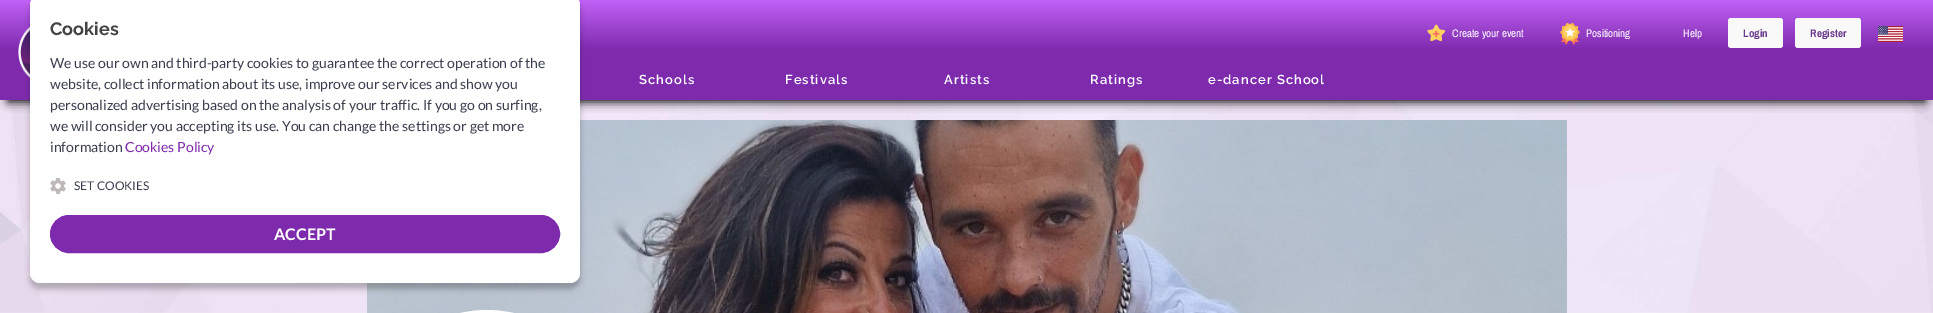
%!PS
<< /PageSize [1933 313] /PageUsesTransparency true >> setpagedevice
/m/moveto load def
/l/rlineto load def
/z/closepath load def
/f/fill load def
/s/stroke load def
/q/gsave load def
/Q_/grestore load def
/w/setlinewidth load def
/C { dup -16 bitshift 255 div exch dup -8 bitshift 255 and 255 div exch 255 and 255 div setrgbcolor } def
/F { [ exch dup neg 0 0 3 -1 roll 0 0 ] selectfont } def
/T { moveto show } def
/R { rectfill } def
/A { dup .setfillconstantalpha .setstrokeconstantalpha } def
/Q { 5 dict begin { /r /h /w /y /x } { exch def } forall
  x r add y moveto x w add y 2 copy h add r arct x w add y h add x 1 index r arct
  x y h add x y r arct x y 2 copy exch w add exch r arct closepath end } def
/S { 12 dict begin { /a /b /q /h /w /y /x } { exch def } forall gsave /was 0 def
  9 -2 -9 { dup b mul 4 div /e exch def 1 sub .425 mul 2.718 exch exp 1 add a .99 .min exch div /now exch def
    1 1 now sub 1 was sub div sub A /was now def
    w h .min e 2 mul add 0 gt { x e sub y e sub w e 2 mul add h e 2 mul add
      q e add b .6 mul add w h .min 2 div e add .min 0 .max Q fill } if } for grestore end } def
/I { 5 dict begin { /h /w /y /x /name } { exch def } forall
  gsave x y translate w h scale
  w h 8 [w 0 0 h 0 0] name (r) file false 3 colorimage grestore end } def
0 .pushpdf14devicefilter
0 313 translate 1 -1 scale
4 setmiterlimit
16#FFFFFF C
0 0 1933 313 R
(1.rgb) 0 100 1933 213 I
q 0 0 m 1933 0 l 0 50 l -1933 0 l z clip newpath
<< /ShadingType 2 /ColorSpace /DeviceRGB /Coords [967 0 967 50] /Extend [true true] /Function << /FunctionType 2 /Domain [0 1] /C0 [.757 .384 .969] /C1 [.494 .165 .678] /N 1 >> >> shfill Q_
16#000000 C
8 68 1917 34 0 5 1 S
16#7E2AAD C
0 50 1933 50 R
(3.rgb) 18 26 12 52 I
(7.rgb) 367 120 1200 193 I
16#000000 C
30 1 550 288 10 3 .25 S
16#FFFFFF C
30 -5 550 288 10 Q f
/Raleway-Bold 18 F
16#444444 C
(Cookies) 50 35 T
/Lato-Regular 14 F
16#393D4D C
(We use our own and third-party cookies to guarantee the correct operation of the) 50 68 T
(website, collect information about its use, improve our services and show you) 50 89 T
(personalized advertising based on the analysis of your traffic. If you go on surfing,) 50 110 T
(we will consider you accepting its use. You can change the settings or get more) 50 131 T
(information) 50 152 T
16#7E2AAD C
(Cookies Policy) 125 152 T
(2.rgb) 50 178 16 16 I
/Lato-Regular 12 F
16#393D4D C
(SET COOKIES) 74 190 T
16#7E2AAD C
50.5 215.5 509 37 18.5 Q q f Q_
s
/Lato-Bold 16 F
16#FFFFFF C
(ACCEPT) 274 240 T
(4.rgb) 1427 24 19 18 I
/PragatiNarrow-Regular 12 F
(Create your event) 1452 37 T
(5.rgb) 1560 23 20 22 I
(Positioning) 1586 37 T
(Help) 1683 37 T
16#F9F9F9 C
1728 18 55 30 3 Q f
/PragatiNarrow-Bold 12 F
16#6C3B8E C
(Login) 1743 37 T
16#F9F9F9 C
1795 18 66 30 3 Q f
16#6C3B8E C
(Register) 1810 37 T
(6.rgb) 1878 26 25 16 I
/Raleway-SemiBold 13 F
16#FFFFFF C
639 84 m 1 0 (Schools) ashow
785 84 m 1 0 (Festivals) ashow
944 84 m 1 0 (Artists) ashow
1090 84 m 1 0 (Ratings) ashow
1208 84 m 1 0 (e-dancer School) ashow
4 w
369 312 236 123 118 Q s
.poppdf14devicefilter showpage
